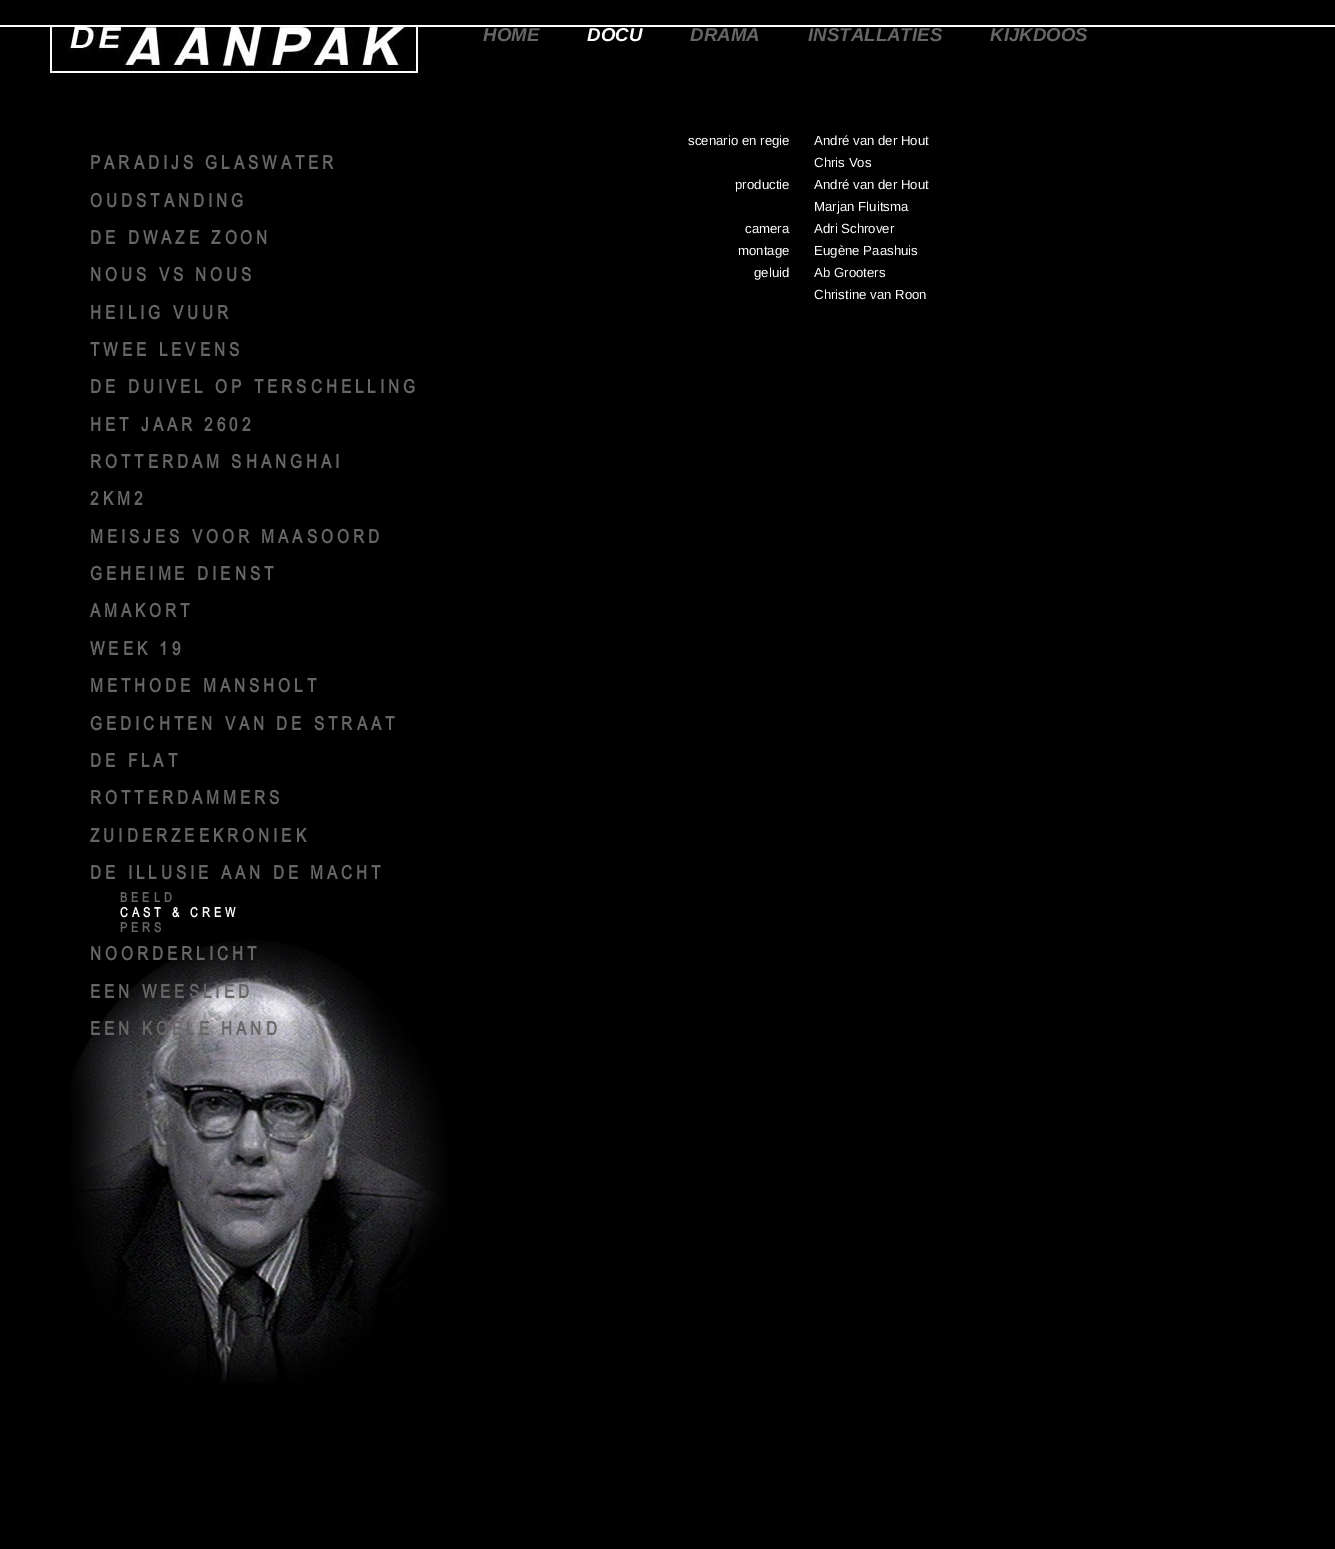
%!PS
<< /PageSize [1335 1549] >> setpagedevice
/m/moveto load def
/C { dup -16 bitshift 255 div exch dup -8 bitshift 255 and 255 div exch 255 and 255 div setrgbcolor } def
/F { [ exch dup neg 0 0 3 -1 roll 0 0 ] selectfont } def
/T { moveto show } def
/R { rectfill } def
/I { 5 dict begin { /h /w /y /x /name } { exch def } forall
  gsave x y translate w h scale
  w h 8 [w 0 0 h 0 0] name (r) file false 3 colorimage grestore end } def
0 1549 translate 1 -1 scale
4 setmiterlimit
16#000000 C
0 0 1335 1549 R
16#FFFFFF C
0 25 1335 2 R
(1.rgb) 50 27 368 46 I
/LiberationSans-BoldItalic 18.7 F
16#666666 C
(HOME) 483 41 T
16#FFFFFF C
(DOCU) 587 41 T
16#666666 C
(DRAMA) 690 41 T
(INSTALLATIES) 808 41 T
(KIJKDOOS) 990 41 T
/Arial-Bold 18.7 F
90 169 m 4 0 (PARADIJS GLASWATER) ashow
90 207 m 4 0 (OUDSTANDING) ashow
90 244 m 4 0 (DE DWAZE ZOON) ashow
90 281 m 4 0 (NOUS VS NOUS) ashow
90 319 m 4 0 (HEILIG VUUR) ashow
90 356 m 4 0 (TWEE LEVENS) ashow
90 393 m 4 0 (DE DUIVEL OP TERSCHELLING) ashow
90 431 m 4 0 (HET JAAR 2602) ashow
90 468 m 4 0 (ROTTERDAM SHANGHAI) ashow
90 505 m 4 0 (2KM2) ashow
90 543 m 4 0 (MEISJES VOOR MAASOORD) ashow
90 580 m 4 0 (GEHEIME DIENST) ashow
90 617 m 4 0 (AMAKORT) ashow
90 655 m 4 0 (WEEK 19) ashow
90 692 m 4 0 (METHODE MANSHOLT) ashow
90 730 m 4 0 (GEDICHTEN VAN DE STRAAT) ashow
90 767 m 4 0 (DE FLAT) ashow
90 804 m 4 0 (ROTTERDAMMERS) ashow
90 842 m 4 0 (ZUIDERZEEKRONIEK) ashow
90 879 m 4 0 (DE ILLUSIE AAN DE MACHT) ashow
/Arial-Bold 13.25 F
120 902 m 4 0 (BEELD) ashow
16#FFFFFF C
120 917 m 4 0 (CAST & CREW) ashow
16#666666 C
120 932 m 4 0 (PERS) ashow
(2.rgb) 71 940 378 443 I
/Arial-Bold 18.7 F
90 960 m 4 0 (NOORDERLICHT) ashow
90 998 m 4 0 (EEN WEESLIED) ashow
90 1035 m 4 0 (EEN KOELE HAND) ashow
/LiberationSans-Regular 13.25 F
16#FFFFFF C
(scenario en regie) 688 145 T
(André van der Hout) 814 145 T
(Chris Vos) 814 167 T
(productie) 735 189 T
(André van der Hout) 814 189 T
(Marjan Fluitsma) 814 211 T
(camera) 745 233 T
(Adri Schrover) 814 233 T
(montage) 738 255 T
(Eugène Paashuis) 814 255 T
(geluid) 754 277 T
(Ab Grooters) 814 277 T
(Christine van Roon) 814 299 T
showpage
